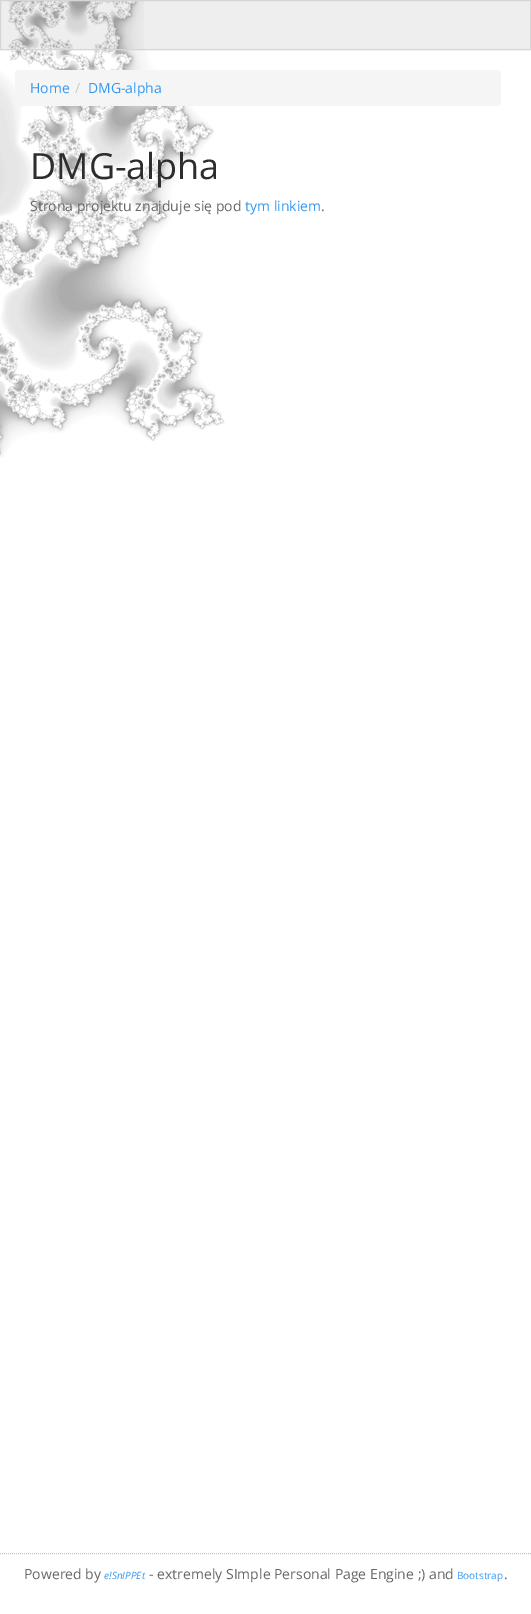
%!PS
<< /PageSize [531 1614] >> setpagedevice
/m/moveto load def
/l/rlineto load def
/f/fill load def
/s/stroke load def
/C { dup -16 bitshift 255 div exch dup -8 bitshift 255 and 255 div exch 255 and 255 div setrgbcolor } def
/F { [ exch dup neg 0 0 3 -1 roll 0 0 ] selectfont } def
/T { moveto show } def
/R { rectfill } def
/Q { 5 dict begin { /r /h /w /y /x } { exch def } forall
  x r add y moveto x w add y 2 copy h add r arct x w add y h add x 1 index r arct
  x y h add x y r arct x y 2 copy exch w add exch r arct closepath end } def
/I { 5 dict begin { /h /w /y /x /name } { exch def } forall
  gsave x y translate w h scale
  w h 8 [w 0 0 h 0 0] name (r) file false 3 colorimage grestore end } def
0 1614 translate 1 -1 scale
4 setmiterlimit
16#FFFFFF C
0 0 531 1614 R
(1.rgb) 0 50 225 408 I
16#EEEEEE C
1 1 529 48 R
(2.rgb) 8 1 136 48 I
16#D5D5D5 C
.5 .5 530 49 rectstroke
16#F5F5F5 C
15 70 486 36 4 Q f
/OpenSans-Regular 14 F
16#3399F3 C
(Home) 30 93 T
16#CCCCCC C
(/) 75 93 T
16#3399F3 C
(DMG-alpha) 88 93 T
/OpenSans-Regular 36 F
16#2D2D2D C
(DMG-alpha) 30 179 T
/OpenSans-Regular 14 F
16#666666 C
(Strona projektu znajduje się pod) 30 211 T
16#3399F3 C
(tym linkiem) 245 211 T
16#666666 C
(.) 321 211 T
16#C0C0C0 C
[1 1] 0 setdash
0 1553.5 m 531 0 l s
16#666666 C
(Powered by) 24 1579 T
/OpenSans-Italic 10 F
16#3399F3 C
(e!SnIPPEt) 104 1579 T
/OpenSans-Regular 14 F
16#666666 C
(- extremely SImple Personal Page Engine ;\) and) 149 1579 T
/OpenSans-Regular 10 F
16#3399F3 C
(Bootstrap) 457 1579 T
/OpenSans-Regular 14 F
16#666666 C
(.) 504 1579 T
showpage
